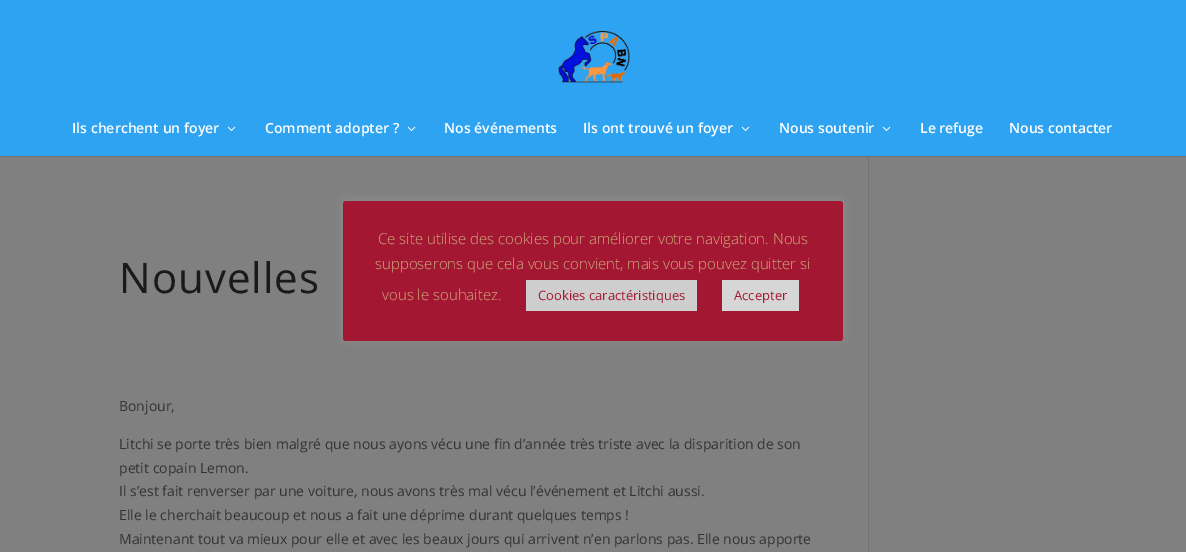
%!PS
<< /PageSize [1186 552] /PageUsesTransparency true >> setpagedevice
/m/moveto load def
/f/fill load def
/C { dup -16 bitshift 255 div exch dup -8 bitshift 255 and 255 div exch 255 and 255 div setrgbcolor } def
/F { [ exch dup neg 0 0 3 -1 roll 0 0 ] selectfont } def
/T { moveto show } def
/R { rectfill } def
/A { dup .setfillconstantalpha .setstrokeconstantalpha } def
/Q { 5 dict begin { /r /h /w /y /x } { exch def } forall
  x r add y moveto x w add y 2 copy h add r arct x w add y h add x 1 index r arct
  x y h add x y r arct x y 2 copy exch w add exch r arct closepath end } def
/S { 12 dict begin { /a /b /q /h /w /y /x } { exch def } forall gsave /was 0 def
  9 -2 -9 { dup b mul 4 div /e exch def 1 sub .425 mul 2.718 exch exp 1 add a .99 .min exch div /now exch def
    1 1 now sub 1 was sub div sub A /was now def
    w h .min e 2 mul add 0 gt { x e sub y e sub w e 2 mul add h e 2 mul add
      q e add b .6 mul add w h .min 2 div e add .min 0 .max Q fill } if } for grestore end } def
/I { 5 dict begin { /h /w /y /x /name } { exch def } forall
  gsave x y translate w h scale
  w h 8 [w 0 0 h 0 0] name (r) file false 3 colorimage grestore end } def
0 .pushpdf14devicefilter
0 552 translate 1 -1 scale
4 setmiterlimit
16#808080 C
0 0 1186 552 R
16#737373 C
0 156 1186 1 R
16#2EA3F2 C
0 0 1186 156 R
(1.rgb) 558 31 72 52 I
/OpenSans-SemiBold 14 F
16#FFFFFF C
(Ils cherchent un foyer) 72 133 T
(2.rgb) 227 126 9 5 I
(Comment adopter ?) 265 133 T
(2.rgb) 407 126 9 5 I
(Nos événements) 444 133 T
(Ils ont trouvé un foyer) 583 133 T
(2.rgb) 741 126 9 5 I
(Nous soutenir) 779 133 T
(2.rgb) 882 126 9 5 I
(Le refuge) 920 133 T
(Nous contacter) 1009 133 T
/OpenSans-Regular 42 F
16#1A1A1A C
119 293 m 1 0 (Nouvelles) ashow
/OpenSans-Regular 14 F
16#333333 C
(Bonjour,) 119 411 T
(Litchi se porte très bien malgré que nous ayons vécu une fin d’année très triste avec la disparition de son) 119 449 T
(petit copain Lemon.) 119 473 T
(Il s’est fait renverser par une voiture, nous avons très mal vécu l’événement et Litchi aussi.) 119 496 T
(Elle le cherchait beaucoup et nous a fait une déprime durant quelques temps !) 119 520 T
(Maintenant tout va mieux pour elle et avec les beaux jours qui arrivent n’en parlons pas. Elle nous apporte) 119 544 T
16#717171 C
868 156 1 396 R
16#666666 C
868 156 1 1 R
16#ACABAB C
343 200 500 140 3 5 .3 S
16#A31732 C
343 201 500 140 3 Q f
/OpenSans-Light 15 F
16#CDAB7B C
(Ce site utilise des cookies pour améliorer votre navigation. Nous) 378 244 T
(supposerons que cela vous convient, mais vous pouvez quitter si) 375 269 T
(vous le souhaitez.) 382 300 T
16#CECECE C
526 280 171 31 R
/OpenSans-Regular 13 F
16#A31732 C
(Cookies caractéristiques) 538 300 T
16#D6D6D6 C
722 280 77 31 R
16#A31732 C
(Accepter) 734 300 T
.poppdf14devicefilter showpage
